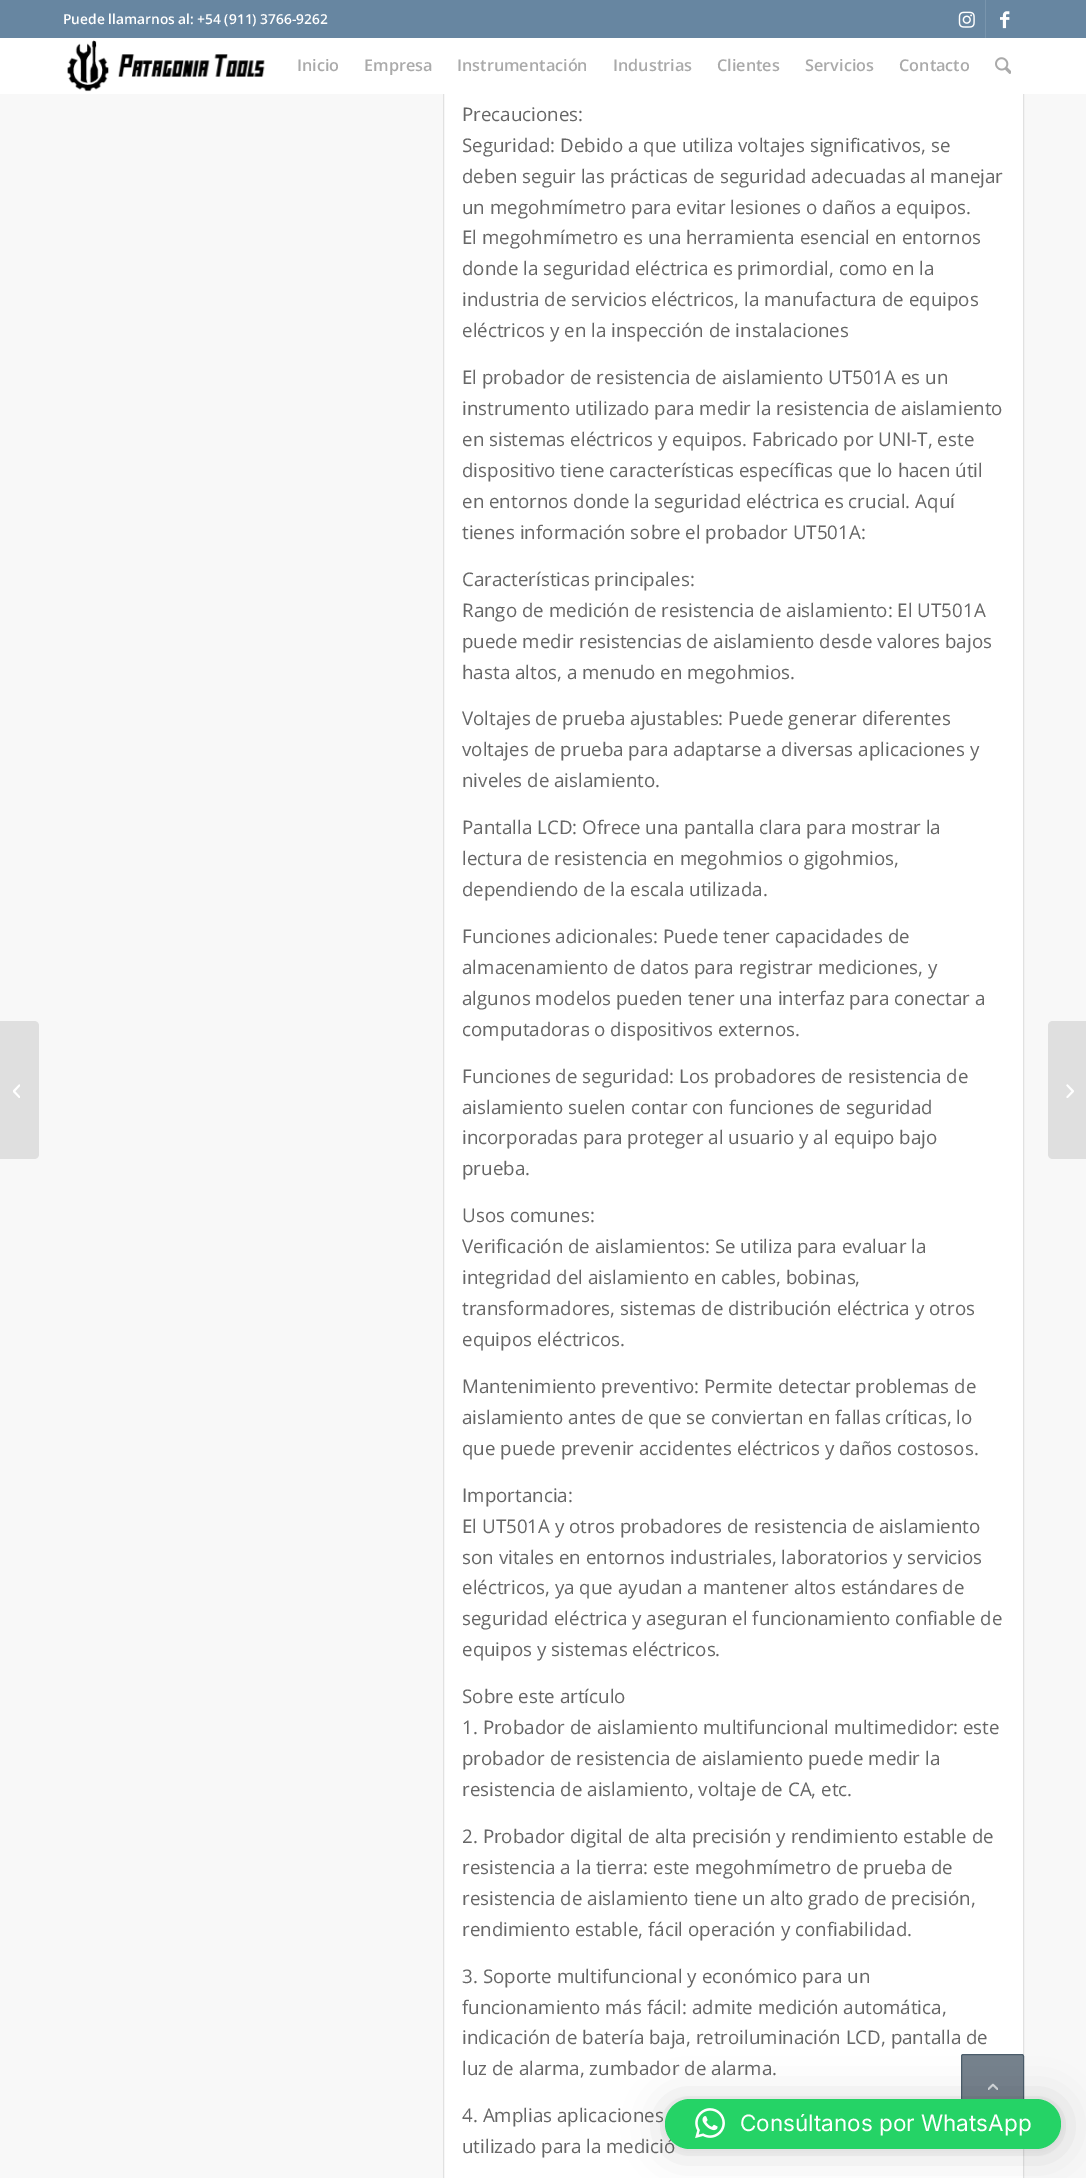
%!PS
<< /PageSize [1086 2178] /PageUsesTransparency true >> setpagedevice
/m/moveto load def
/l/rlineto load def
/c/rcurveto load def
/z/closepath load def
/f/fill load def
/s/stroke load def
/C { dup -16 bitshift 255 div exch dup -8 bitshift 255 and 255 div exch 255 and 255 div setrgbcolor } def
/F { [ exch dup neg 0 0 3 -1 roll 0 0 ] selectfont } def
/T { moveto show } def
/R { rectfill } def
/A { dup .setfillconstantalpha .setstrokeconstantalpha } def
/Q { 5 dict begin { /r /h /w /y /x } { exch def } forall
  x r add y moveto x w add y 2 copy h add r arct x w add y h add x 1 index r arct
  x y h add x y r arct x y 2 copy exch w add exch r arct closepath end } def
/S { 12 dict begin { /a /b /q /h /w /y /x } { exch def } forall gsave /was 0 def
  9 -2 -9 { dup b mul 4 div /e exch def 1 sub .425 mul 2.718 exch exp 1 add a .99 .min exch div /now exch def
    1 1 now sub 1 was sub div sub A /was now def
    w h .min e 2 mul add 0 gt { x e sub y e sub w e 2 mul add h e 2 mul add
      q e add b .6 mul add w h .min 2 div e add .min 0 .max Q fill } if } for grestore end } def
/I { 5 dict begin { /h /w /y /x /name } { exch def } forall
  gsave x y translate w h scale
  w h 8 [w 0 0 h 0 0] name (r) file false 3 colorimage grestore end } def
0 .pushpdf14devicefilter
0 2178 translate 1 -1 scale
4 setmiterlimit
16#F8F8F8 C
0 0 1086 2178 R
16#FFFFFF C
444 94 579 2084 R
16#E1E1E1 C
443.5 -.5 580 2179 rectstroke
16#6786A1 C
0 0 1086 38 R
/OpenSans-SemiBold 13.75 F
16#FFFFFF C
(Puede llamarnos al: +54 \(911\) 3766-9262) 63 24 T
16#7995AD C
985 0 1 38 R
(1.rgb) 958 11 17 17 I
(2.rgb) 1000 11 10 18 I
16#FFFFFF C
0 38 1086 56 R
(3.rgb) 67 40 198 52 I
/OpenSans-SemiBold 16.25 F
16#AAAAAA C
(Inicio) 297 71 T
(Empresa) 364 71 T
(Instrumentación) 457 71 T
(Industrias) 613 71 T
(Clientes) 717 71 T
(Servicios) 805 71 T
(Contacto) 899 71 T
(4.rgb) 995 57 16 17 I
16#DFDFDF C
0 1021 m 34 0 l 3 0 5 2 5 5 c 0 128 l 0 3 -2 5 -5 5 c -34 0 l z f
(5.rgb) 13 1084 7 14 I
/OpenSans-Regular 18.75 F
16#666666 C
(Precauciones:) 462 121 T
(Seguridad: Debido a que utiliza voltajes significativos, se) 462 152 T
(deben seguir las prácticas de seguridad adecuadas al manejar) 462 183 T
(un megohmímetro para evitar lesiones o daños a equipos.) 462 214 T
(El megohmímetro es una herramienta esencial en entornos) 462 244 T
(donde la seguridad eléctrica es primordial, como en la) 462 275 T
(industria de servicios eléctricos, la manufactura de equipos) 462 306 T
(eléctricos y en la inspección de instalaciones) 462 337 T
(El probador de resistencia de aislamiento UT501A es un) 462 384 T
(instrumento utilizado para medir la resistencia de aislamiento) 462 415 T
(en sistemas eléctricos y equipos. Fabricado por UNI-T, este) 462 446 T
(dispositivo tiene características específicas que lo hacen útil) 462 477 T
(en entornos donde la seguridad eléctrica es crucial. Aquí) 462 508 T
(tienes información sobre el probador UT501A:) 462 539 T
(Características principales:) 462 586 T
(Rango de medición de resistencia de aislamiento: El UT501A) 462 617 T
(puede medir resistencias de aislamiento desde valores bajos) 462 648 T
(hasta altos, a menudo en megohmios.) 462 679 T
(Voltajes de prueba ajustables: Puede generar diferentes) 462 725 T
(voltajes de prueba para adaptarse a diversas aplicaciones y) 462 756 T
(niveles de aislamiento.) 462 787 T
(Pantalla LCD: Ofrece una pantalla clara para mostrar la) 462 834 T
(lectura de resistencia en megohmios o gigohmios,) 462 865 T
(dependiendo de la escala utilizada.) 462 896 T
(Funciones adicionales: Puede tener capacidades de) 462 943 T
(almacenamiento de datos para registrar mediciones, y) 462 974 T
(algunos modelos pueden tener una interfaz para conectar a) 462 1005 T
(computadoras o dispositivos externos.) 462 1036 T
(Funciones de seguridad: Los probadores de resistencia de) 462 1083 T
(aislamiento suelen contar con funciones de seguridad) 462 1114 T
(incorporadas para proteger al usuario y al equipo bajo) 462 1144 T
(prueba.) 462 1175 T
(Usos comunes:) 462 1222 T
(Verificación de aislamientos: Se utiliza para evaluar la) 462 1253 T
(integridad del aislamiento en cables, bobinas,) 462 1284 T
(transformadores, sistemas de distribución eléctrica y otros) 462 1315 T
(equipos eléctricos.) 462 1346 T
(Mantenimiento preventivo: Permite detectar problemas de) 462 1393 T
(aislamiento antes de que se conviertan en fallas críticas, lo) 462 1424 T
(que puede prevenir accidentes eléctricos y daños costosos.) 462 1455 T
(Importancia:) 462 1502 T
(El UT501A y otros probadores de resistencia de aislamiento) 462 1533 T
(son vitales en entornos industriales, laboratorios y servicios) 462 1564 T
(eléctricos, ya que ayudan a mantener altos estándares de) 462 1594 T
(seguridad eléctrica y aseguran el funcionamiento confiable de) 462 1625 T
(equipos y sistemas eléctricos.) 462 1656 T
(Sobre este artículo) 462 1703 T
(1. Probador de aislamiento multifuncional multimedidor: este) 462 1734 T
(probador de resistencia de aislamiento puede medir la) 462 1765 T
(resistencia de aislamiento, voltaje de CA, etc.) 462 1796 T
(2. Probador digital de alta precisión y rendimiento estable de) 462 1843 T
(resistencia a la tierra: este megohmímetro de prueba de) 462 1874 T
(resistencia de aislamiento tiene un alto grado de precisión,) 462 1905 T
(rendimiento estable, fácil operación y confiabilidad.) 462 1936 T
(3. Soporte multifuncional y económico para un) 462 1983 T
(funcionamiento más fácil: admite medición automática,) 462 2014 T
(indicación de batería baja, retroiluminación LCD, pantalla de) 462 2044 T
(luz de alarma, zumbador de alarma.) 462 2075 T
(4. Amplias aplicaciones) 462 2122 T
(utilizado para la medició) 462 2153 T
16#DFDFDF C
1053 1021 m 33 0 l 0 138 l -33 0 l -3 0 -5 -2 -5 -5 c 0 -128 l 0 -3 2 -5 5 -5 c z f
(6.rgb) 1066 1084 8 14 I
0.7 A
16#3A4D5C C
961 2054 63 62 2.5 Q f
961.5 2054.5 62 61 2 Q s
1 A
(7.rgb) 988 2083 10 7 I
16#000000 C
665 2101 396 50 25 20 .16 S
665 2100 396 50 25 4 .06 S
16#25D366 C
665 2099 396 50 25 Q f
(8.rgb) 695 2108 30 31 I
/Inter-Regular 22.5 F
16#FFFFFF C
(Consúltanos por WhatsApp) 740 2131 T
.poppdf14devicefilter showpage
